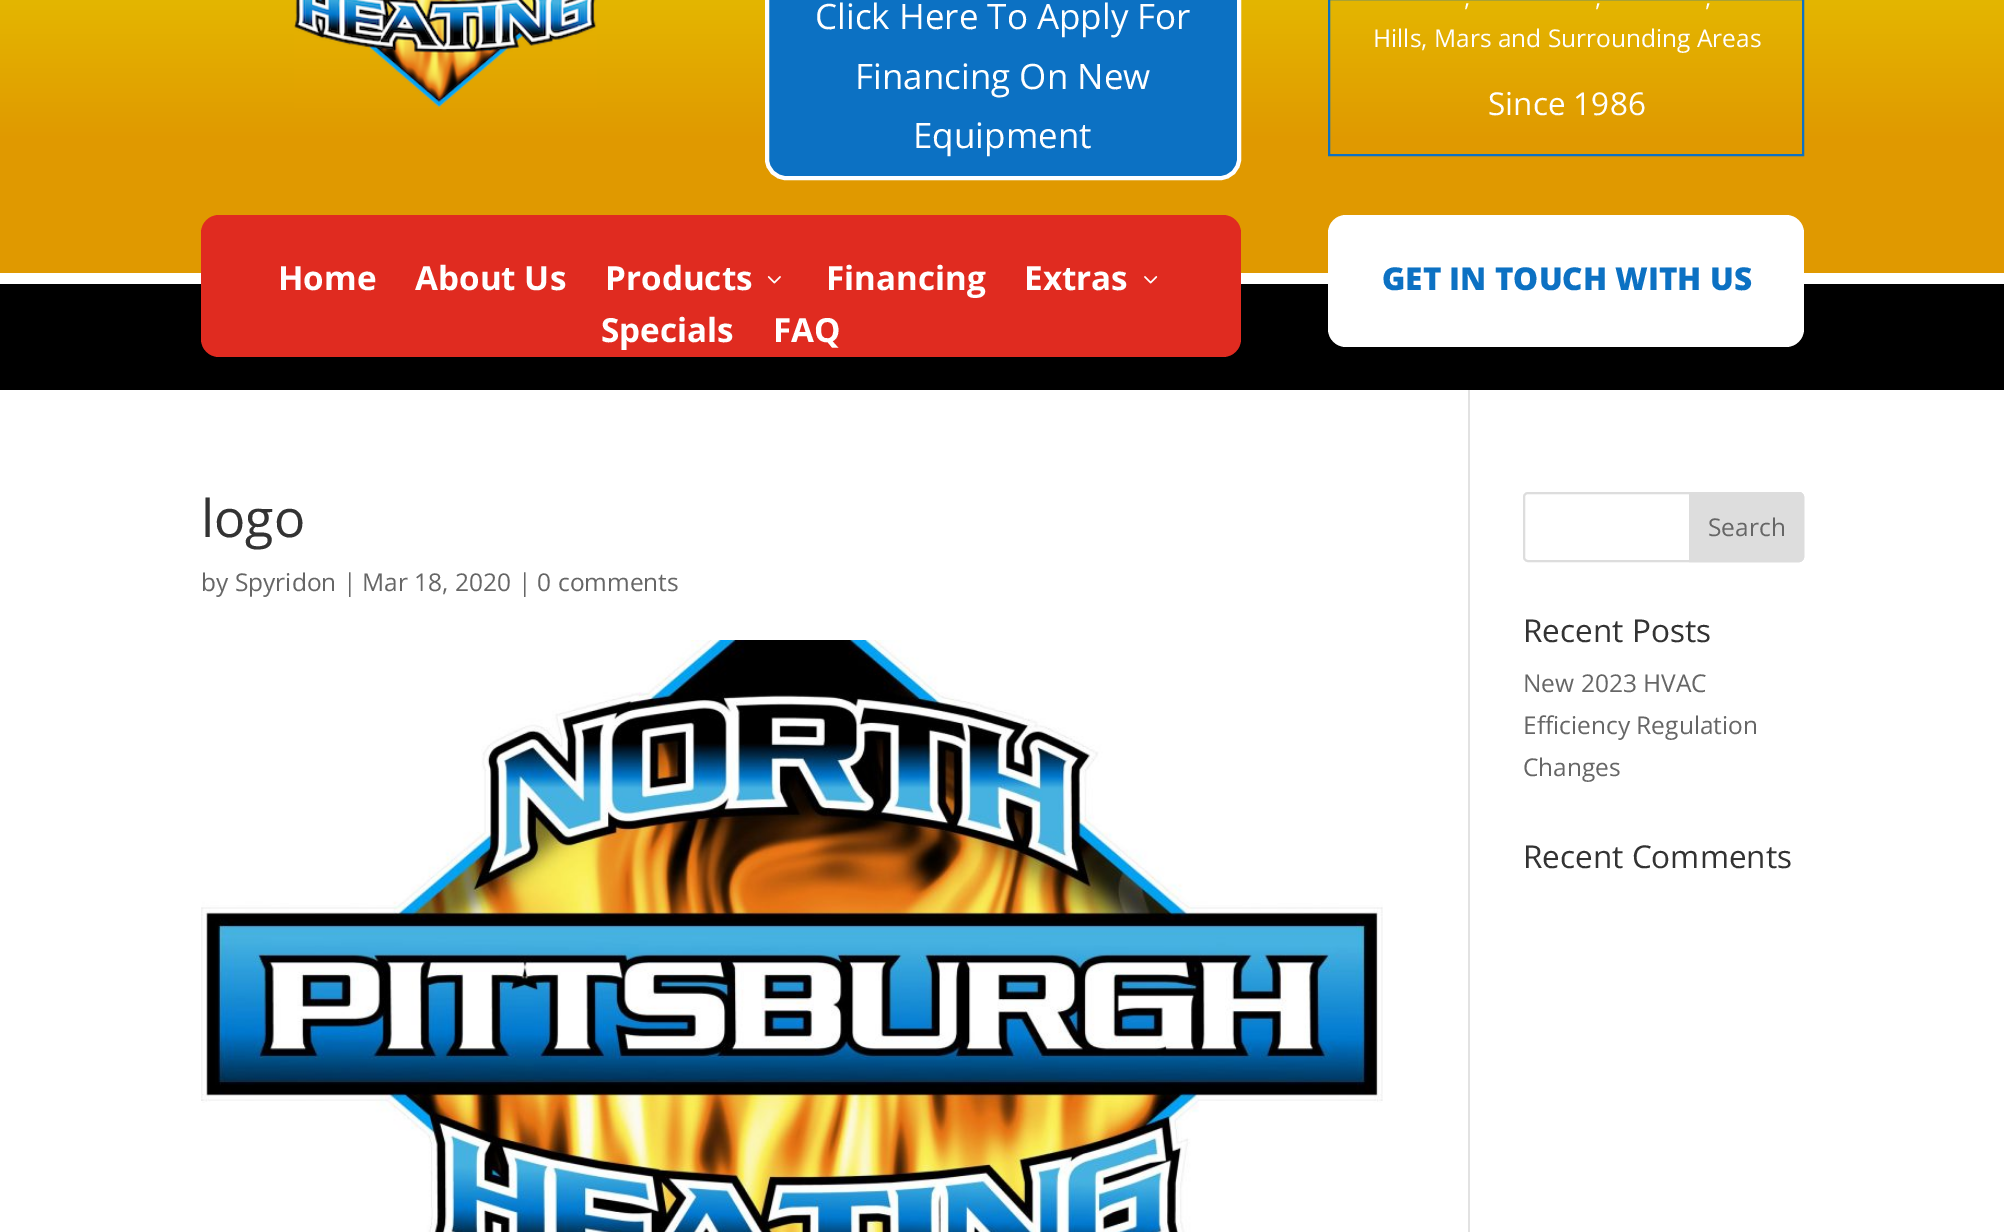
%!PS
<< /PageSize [2004 1232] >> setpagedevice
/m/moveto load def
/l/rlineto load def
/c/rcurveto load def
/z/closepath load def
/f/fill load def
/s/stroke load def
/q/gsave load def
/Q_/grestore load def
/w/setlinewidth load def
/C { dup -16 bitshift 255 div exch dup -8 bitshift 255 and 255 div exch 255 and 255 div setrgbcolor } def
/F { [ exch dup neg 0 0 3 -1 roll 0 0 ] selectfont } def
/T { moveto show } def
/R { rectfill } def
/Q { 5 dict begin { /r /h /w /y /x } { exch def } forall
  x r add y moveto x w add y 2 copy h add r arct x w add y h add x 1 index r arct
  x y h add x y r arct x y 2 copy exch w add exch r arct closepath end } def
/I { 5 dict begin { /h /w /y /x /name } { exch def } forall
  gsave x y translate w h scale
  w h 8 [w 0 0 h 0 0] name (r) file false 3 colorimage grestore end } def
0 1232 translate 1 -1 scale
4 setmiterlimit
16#FFFFFF C
0 0 2004 1232 R
q 0 0 m 2004 0 l 0 273 l -2004 0 l z clip newpath
<< /ShadingType 2 /ColorSpace /DeviceRGB /Coords [1003 -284 1003 273] /Extend [true true] /Function << /FunctionType 3 /Domain [0 1] /Functions [<< /FunctionType 2 /Domain [0 1] /C0 [.929 .941 0] /C1 [.878 .6 0] /N 1 >> << /FunctionType 2 /Domain [0 1] /C0 [.878 .6 0] /C1 [.878 .6 0] /N 1 >>] /Bounds [.76] /Encode [0 1 0 1] >> >> shfill Q_
(1.rgb) 294 0 303 108 I
16#0C71C3 C
767 -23 472 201 19 Q q f Q_
16#FFFFFF C
4 w
s
/OpenSans-Regular 35 F
(Click Here To Apply For) 815 29 T
(Financing On New) 855 89 T
(Equipment) 913 148 T
16#0C71C3 C
2 w
1329 -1 474 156 rectstroke
/OpenSans-Regular 24.5 F
16#FFFFFF C
(,) 1464 6 T
(,) 1595 6 T
(,) 1705 6 T
(Hills, Mars and Surrounding Areas) 1373 47 T
/OpenSans-Regular 31.5 F
(Since 1986) 1488 115 T
16#000000 C
0 284 2004 106 R
16#E02B20 C
201 215 1040 142 18 Q f
/OpenSans-Bold 33.25 F
16#FFFFFF C
(Home) 278 290 T
(About Us) 415 290 T
(Products) 605 290 T
(2.rgb) 767 276 14 8 I
(Financing) 826 290 T
(Extras) 1024 290 T
(3.rgb) 1144 276 14 8 I
(Specials) 601 342 T
(FAQ) 773 342 T
1328 215 476 132 18 Q f
/OpenSans-ExtraBold 31.5 F
16#0C71C3 C
(GET IN TOUCH WITH US) 1382 290 T
16#E2E2E2 C
1468 390 2 842 R
/OpenSans-Regular 52 F
16#333333 C
(logo) 201 537 T
/OpenSans-Regular 24.5 F
16#666666 C
(by Spyridon | Mar 18, 2020 | 0 comments) 201 591 T
(4.rgb) 201 640 1182 592 I
16#DDDDDD C
1524 493 279 68 4 Q s
1690 493 m 109 0 l 2 0 4 2 4 4 c 0 60 l 0 2 -2 4 -4 4 c -109 0 l z q f Q_
s
16#666666 C
(Search) 1708 536 T
/OpenSans-Regular 31.5 F
16#333333 C
(Recent Posts) 1523 642 T
/OpenSans-Regular 24.5 F
16#666666 C
(New 2023 HVAC) 1523 692 T
(Efficiency Regulation) 1523 734 T
(Changes) 1523 776 T
/OpenSans-Regular 31.5 F
16#333333 C
(Recent Comments) 1523 868 T
showpage
